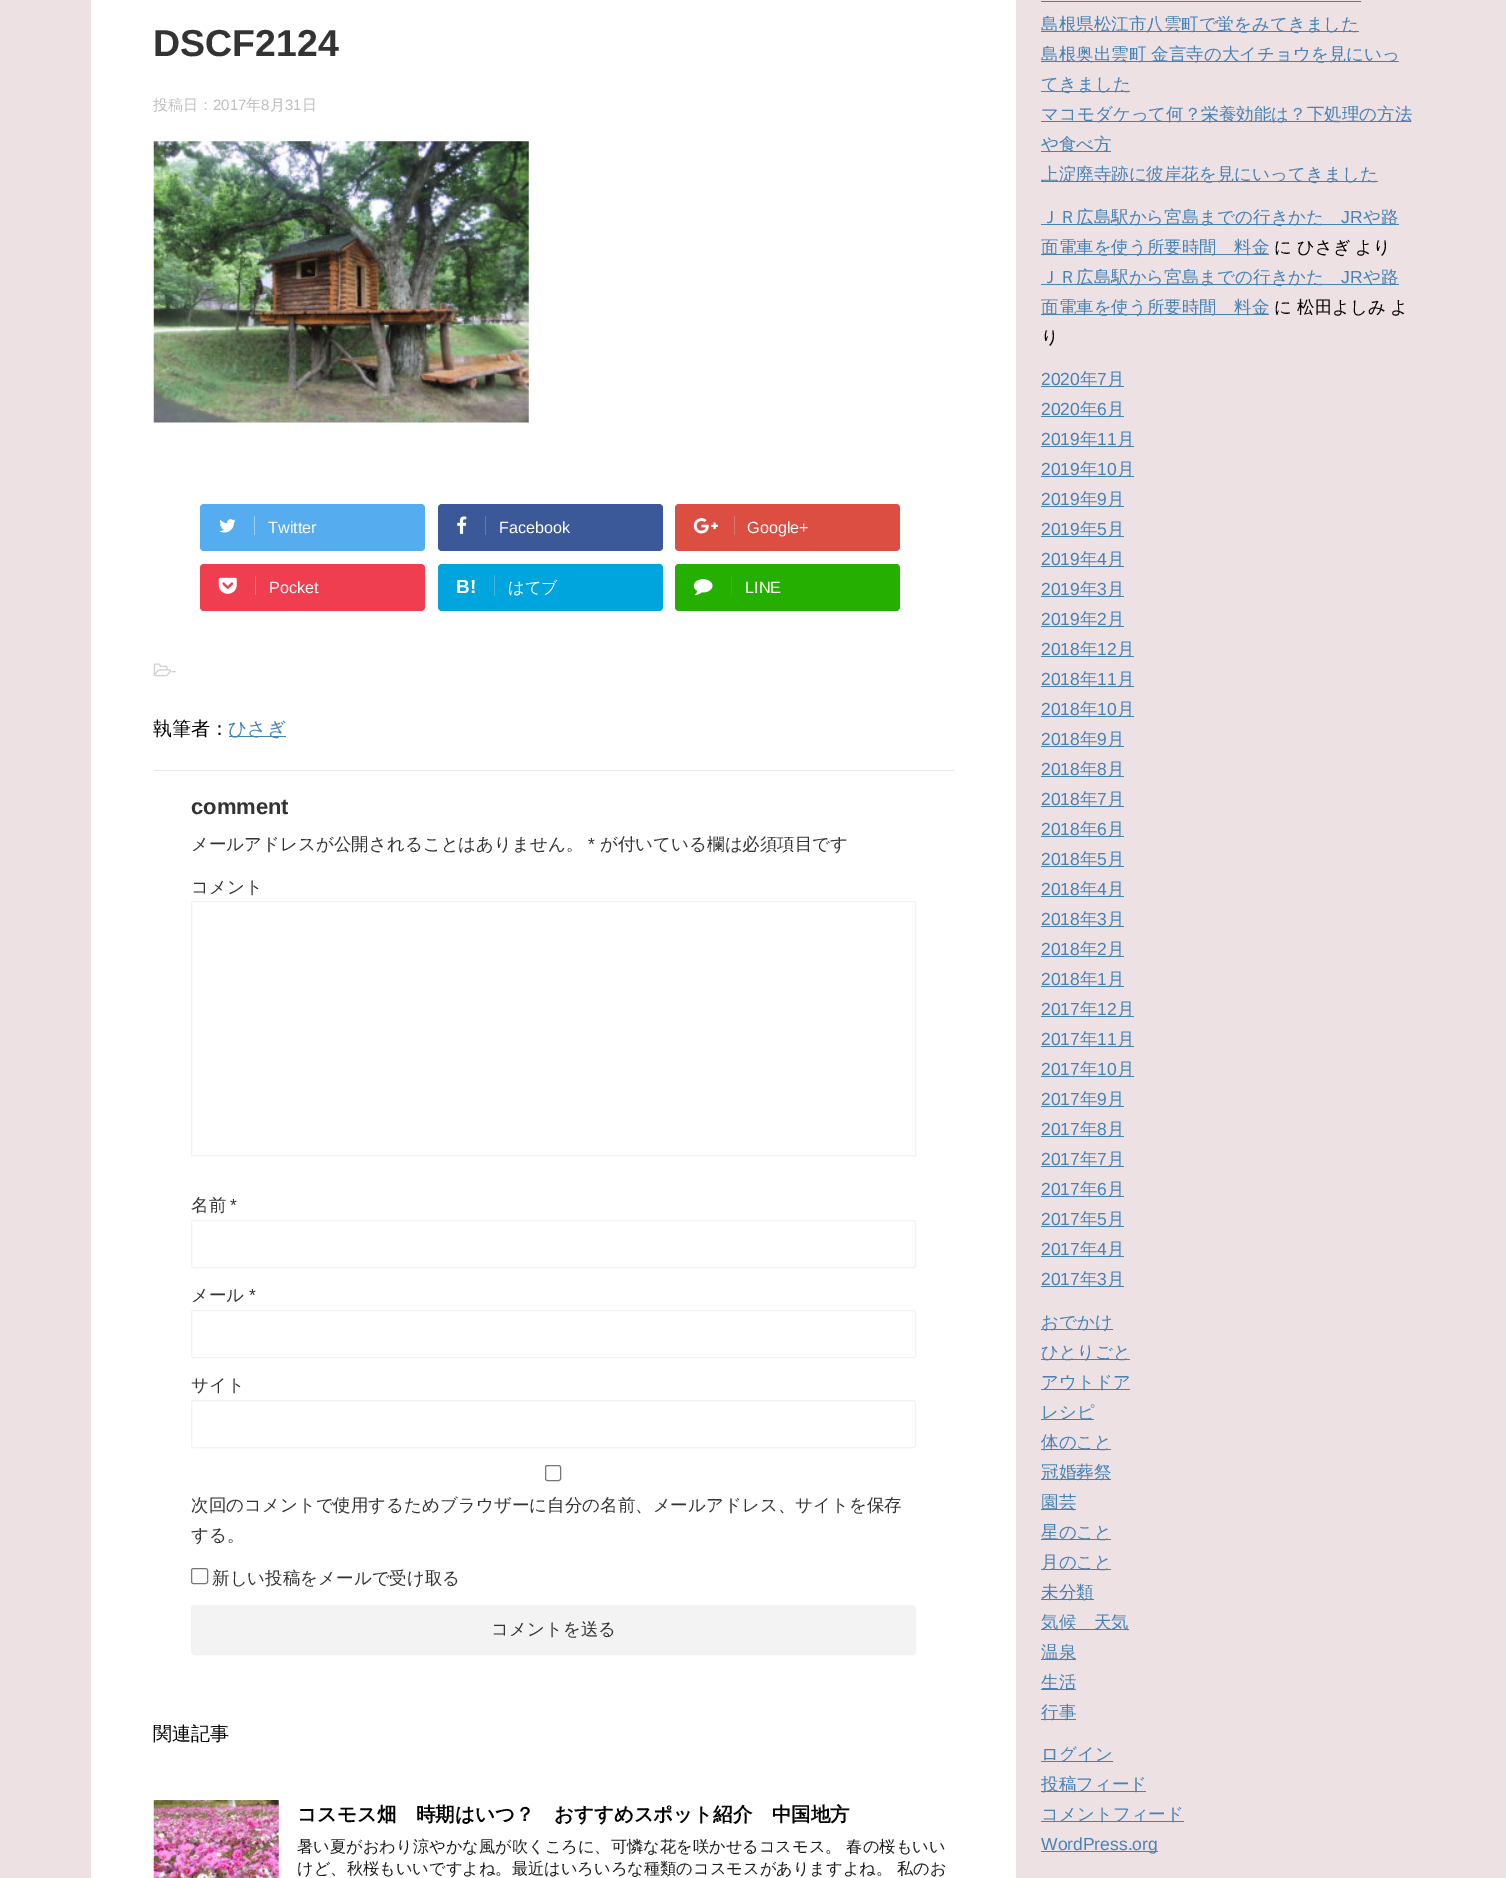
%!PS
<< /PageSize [1506 1878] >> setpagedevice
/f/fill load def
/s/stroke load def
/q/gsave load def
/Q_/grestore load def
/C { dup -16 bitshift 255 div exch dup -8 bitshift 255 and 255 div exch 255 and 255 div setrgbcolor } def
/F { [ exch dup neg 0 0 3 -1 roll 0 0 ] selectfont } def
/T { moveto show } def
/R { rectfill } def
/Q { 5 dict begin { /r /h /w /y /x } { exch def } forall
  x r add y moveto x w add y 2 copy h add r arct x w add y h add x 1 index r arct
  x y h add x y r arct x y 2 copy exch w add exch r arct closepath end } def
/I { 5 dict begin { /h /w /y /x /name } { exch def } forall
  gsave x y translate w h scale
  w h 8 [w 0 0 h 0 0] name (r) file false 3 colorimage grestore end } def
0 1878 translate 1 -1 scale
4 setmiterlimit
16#EDE1E4 C
0 0 1506 1878 R
16#FFFFFF C
91 0 925 1878 R
/LiberationSans-Bold 37.5 F
16#333333 C
(DSCF2124) 153 56 T
/WenQuanYiZenHei-Medium 15 F
16#BDBDBD C
(投稿日：) 153 110 T
/LiberationSans-Regular 15 F
(2017) 213 110 T
/WenQuanYiZenHei-Medium 15 F
(年) 246 110 T
/LiberationSans-Regular 15 F
(8) 261 110 T
/WenQuanYiZenHei-Medium 15 F
(月) 270 110 T
/LiberationSans-Regular 15 F
(31) 285 110 T
/WenQuanYiZenHei-Medium 15 F
(日) 302 110 T
(1.rgb) 153 141 376 282 I
16#55ACEE C
200 504 225 47 4 Q f
16#9ACFF4 C
254 516 1 19 R
(2.rgb) 219 519 17 14 I
/LiberationSans-Regular 16.25 F
16#FFFFFF C
(Twitter) 268 533 T
16#3B5998 C
438 504 225 47 4 Q f
16#607BB2 C
485 516 1 19 R
(3.rgb) 457 516 10 18 I
16#FFFFFF C
(Facebook) 499 533 T
16#DC4E41 C
675 504 225 47 4 Q f
16#E0776D C
734 516 1 19 R
(4.rgb) 693 518 25 16 I
16#FFFFFF C
(Google+) 747 533 T
16#F03E51 C
200 564 225 47 4 Q f
16#F27985 C
255 576 1 19 R
(5.rgb) 218 577 19 17 I
16#FFFFFF C
(Pocket) 269 593 T
16#00A5DE C
438 564 225 47 4 Q f
/LiberationSans-Bold 19 F
16#FFFFFF C
(B!) 456 593 T
16#48B6DB C
494 575 1 21 R
/WenQuanYiZenHei-Medium 16.25 F
16#FFFFFF C
(はてブ) 508 593 T
16#25AF00 C
675 564 225 47 4 Q f
16#29C200 C
731 576 1 19 R
(6.rgb) 693 579 20 17 I
/LiberationSans-Regular 16.25 F
16#FFFFFF C
(LINE) 745 593 T
(7.rgb) 153 663 18 14 I
16#CCCCCC C
(-) 171 676 T
/WenQuanYiZenHei-Medium 19 F
16#000000 C
(執筆者：) 153 735 T
16#4682B4 C
229 736 57 1 R
(ひさぎ) 228 735 T
16#E6E6E6 C
154 770 800 1 R
/LiberationSans-Bold 22 F
16#333333 C
(comment) 191 814 T
/WenQuanYiZenHei-Medium 17.5 F
(メールアドレスが公開されることはありません。) 191 850 T
/LiberationSans-Regular 17.5 F
(*) 588 850 T
/WenQuanYiZenHei-Medium 17.5 F
(が付いている欄は必須項目です) 600 850 T
(コメント) 191 893 T
16#F2F2F2 C
191.5 901.5 724 254 rectstroke
16#333333 C
(名前) 191 1211 T
/LiberationSans-Regular 17.5 F
(*) 230 1211 T
16#F2F2F2 C
191.5 1220.5 724 47 2 Q s
/WenQuanYiZenHei-Medium 17.5 F
16#333333 C
(メール) 191 1301 T
/LiberationSans-Regular 17.5 F
(*) 249 1301 T
16#F2F2F2 C
191.5 1310.5 724 47 2 Q s
/WenQuanYiZenHei-Medium 17.5 F
16#333333 C
(サイト) 191 1391 T
16#F2F2F2 C
191.5 1400.5 724 47 2 Q s
16#767676 C
545.5 1465.5 15 15 2 Q s
16#333333 C
(次回のコメントで使用するためブラウザーに自分の名前、メールアドレス、サイトを保存) 191 1511 T
(する。) 191 1541 T
16#767676 C
191.5 1568.5 16 15 2 Q s
16#333333 C
(新しい投稿をメールで受け取る) 212 1584 T
16#F3F3F3 C
191.5 1605.5 724 49 3.5 Q q f Q_
16#F2F2F2 C
s
16#333333 C
(コメントを送る) 491 1635 T
/WenQuanYiZenHei-Medium 19 F
16#000000 C
(関連記事) 153 1740 T
(8.rgb) 153 1800 126 78 I
/WenQuanYiZenHei-Bold 19.5 F
(コスモス畑　時期はいつ？　おすすめスポット紹介　中国地方) 297 1821 T
/WenQuanYiZenHei-Medium 16.25 F
16#1A1A1A C
(暑い夏がおわり涼やかな風が吹くころに、可憐な花を咲かせるコスモス。 春の桜もいい) 297 1852 T
(けど、秋桜もいいですよね。最近はいろいろな種類のコスモスがありますよね。 私のお) 297 1874 T
16#4682B4 C
1041 1 320 1 R
1041 31 318 1 R
/WenQuanYiZenHei-Medium 17.5 F
(島根県松江市八雲町で蛍をみてきました) 1041 30 T
1041 61 358 1 R
(島根奥出雲町 金言寺の大イチョウを見にいっ) 1041 60 T
1041 91 89 1 R
(てきました) 1041 90 T
1041 121 370 1 R
(マコモダケって何？栄養効能は？下処理の方法) 1041 120 T
1041 151 70 1 R
(や食べ方) 1041 150 T
1041 181 337 1 R
(上淀廃寺跡に彼岸花を見にいってきました) 1041 180 T
1041 224 358 1 R
(ＪＲ広島駅から宮島までの行きかた) 1041 223 T
/LiberationSans-Regular 17.5 F
(JR) 1341 223 T
/WenQuanYiZenHei-Medium 17.5 F
(や路) 1363 223 T
1041 254 228 1 R
(面電車を使う所要時間　料金) 1041 253 T
16#000000 C
(に) 1274 253 T
(ひさぎ) 1297 253 T
(より) 1355 253 T
16#4682B4 C
1041 284 358 1 R
(ＪＲ広島駅から宮島までの行きかた) 1041 283 T
/LiberationSans-Regular 17.5 F
(JR) 1341 283 T
/WenQuanYiZenHei-Medium 17.5 F
(や路) 1363 283 T
1041 314 228 1 R
(面電車を使う所要時間　料金) 1041 313 T
16#000000 C
(に) 1274 313 T
(松田よしみ) 1297 313 T
(よ) 1390 313 T
(り) 1041 343 T
/LiberationSans-Regular 17.5 F
16#4682B4 C
(2020) 1041 385 T
1041 386 83 1 R
/WenQuanYiZenHei-Medium 17.5 F
(年) 1080 385 T
/LiberationSans-Regular 17.5 F
(7) 1097 385 T
/WenQuanYiZenHei-Medium 17.5 F
(月) 1107 385 T
/LiberationSans-Regular 17.5 F
(2020) 1041 415 T
1041 416 83 1 R
/WenQuanYiZenHei-Medium 17.5 F
(年) 1080 415 T
/LiberationSans-Regular 17.5 F
(6) 1097 415 T
/WenQuanYiZenHei-Medium 17.5 F
(月) 1107 415 T
/LiberationSans-Regular 17.5 F
(2019) 1041 445 T
1041 446 93 1 R
/WenQuanYiZenHei-Medium 17.5 F
(年) 1080 445 T
/LiberationSans-Regular 17.5 F
(11) 1097 445 T
/WenQuanYiZenHei-Medium 17.5 F
(月) 1117 445 T
/LiberationSans-Regular 17.5 F
(2019) 1041 475 T
1041 476 93 1 R
/WenQuanYiZenHei-Medium 17.5 F
(年) 1080 475 T
/LiberationSans-Regular 17.5 F
(10) 1097 475 T
/WenQuanYiZenHei-Medium 17.5 F
(月) 1117 475 T
/LiberationSans-Regular 17.5 F
(2019) 1041 505 T
1041 506 83 1 R
/WenQuanYiZenHei-Medium 17.5 F
(年) 1080 505 T
/LiberationSans-Regular 17.5 F
(9) 1097 505 T
/WenQuanYiZenHei-Medium 17.5 F
(月) 1107 505 T
/LiberationSans-Regular 17.5 F
(2019) 1041 535 T
1041 536 83 1 R
/WenQuanYiZenHei-Medium 17.5 F
(年) 1080 535 T
/LiberationSans-Regular 17.5 F
(5) 1097 535 T
/WenQuanYiZenHei-Medium 17.5 F
(月) 1107 535 T
/LiberationSans-Regular 17.5 F
(2019) 1041 565 T
1041 566 83 1 R
/WenQuanYiZenHei-Medium 17.5 F
(年) 1080 565 T
/LiberationSans-Regular 17.5 F
(4) 1097 565 T
/WenQuanYiZenHei-Medium 17.5 F
(月) 1107 565 T
/LiberationSans-Regular 17.5 F
(2019) 1041 595 T
1041 596 83 1 R
/WenQuanYiZenHei-Medium 17.5 F
(年) 1080 595 T
/LiberationSans-Regular 17.5 F
(3) 1097 595 T
/WenQuanYiZenHei-Medium 17.5 F
(月) 1107 595 T
/LiberationSans-Regular 17.5 F
(2019) 1041 625 T
1041 626 83 1 R
/WenQuanYiZenHei-Medium 17.5 F
(年) 1080 625 T
/LiberationSans-Regular 17.5 F
(2) 1097 625 T
/WenQuanYiZenHei-Medium 17.5 F
(月) 1107 625 T
/LiberationSans-Regular 17.5 F
(2018) 1041 655 T
1041 656 93 1 R
/WenQuanYiZenHei-Medium 17.5 F
(年) 1080 655 T
/LiberationSans-Regular 17.5 F
(12) 1097 655 T
/WenQuanYiZenHei-Medium 17.5 F
(月) 1117 655 T
/LiberationSans-Regular 17.5 F
(2018) 1041 685 T
1041 686 93 1 R
/WenQuanYiZenHei-Medium 17.5 F
(年) 1080 685 T
/LiberationSans-Regular 17.5 F
(11) 1097 685 T
/WenQuanYiZenHei-Medium 17.5 F
(月) 1117 685 T
/LiberationSans-Regular 17.5 F
(2018) 1041 715 T
1041 716 93 1 R
/WenQuanYiZenHei-Medium 17.5 F
(年) 1080 715 T
/LiberationSans-Regular 17.5 F
(10) 1097 715 T
/WenQuanYiZenHei-Medium 17.5 F
(月) 1117 715 T
/LiberationSans-Regular 17.5 F
(2018) 1041 745 T
1041 746 83 1 R
/WenQuanYiZenHei-Medium 17.5 F
(年) 1080 745 T
/LiberationSans-Regular 17.5 F
(9) 1097 745 T
/WenQuanYiZenHei-Medium 17.5 F
(月) 1107 745 T
/LiberationSans-Regular 17.5 F
(2018) 1041 775 T
1041 776 83 1 R
/WenQuanYiZenHei-Medium 17.5 F
(年) 1080 775 T
/LiberationSans-Regular 17.5 F
(8) 1097 775 T
/WenQuanYiZenHei-Medium 17.5 F
(月) 1107 775 T
/LiberationSans-Regular 17.5 F
(2018) 1041 805 T
1041 806 83 1 R
/WenQuanYiZenHei-Medium 17.5 F
(年) 1080 805 T
/LiberationSans-Regular 17.5 F
(7) 1097 805 T
/WenQuanYiZenHei-Medium 17.5 F
(月) 1107 805 T
/LiberationSans-Regular 17.5 F
(2018) 1041 835 T
1041 836 83 1 R
/WenQuanYiZenHei-Medium 17.5 F
(年) 1080 835 T
/LiberationSans-Regular 17.5 F
(6) 1097 835 T
/WenQuanYiZenHei-Medium 17.5 F
(月) 1107 835 T
/LiberationSans-Regular 17.5 F
(2018) 1041 865 T
1041 866 83 1 R
/WenQuanYiZenHei-Medium 17.5 F
(年) 1080 865 T
/LiberationSans-Regular 17.5 F
(5) 1097 865 T
/WenQuanYiZenHei-Medium 17.5 F
(月) 1107 865 T
/LiberationSans-Regular 17.5 F
(2018) 1041 895 T
1041 896 83 1 R
/WenQuanYiZenHei-Medium 17.5 F
(年) 1080 895 T
/LiberationSans-Regular 17.5 F
(4) 1097 895 T
/WenQuanYiZenHei-Medium 17.5 F
(月) 1107 895 T
/LiberationSans-Regular 17.5 F
(2018) 1041 925 T
1041 926 83 1 R
/WenQuanYiZenHei-Medium 17.5 F
(年) 1080 925 T
/LiberationSans-Regular 17.5 F
(3) 1097 925 T
/WenQuanYiZenHei-Medium 17.5 F
(月) 1107 925 T
/LiberationSans-Regular 17.5 F
(2018) 1041 955 T
1041 956 83 1 R
/WenQuanYiZenHei-Medium 17.5 F
(年) 1080 955 T
/LiberationSans-Regular 17.5 F
(2) 1097 955 T
/WenQuanYiZenHei-Medium 17.5 F
(月) 1107 955 T
/LiberationSans-Regular 17.5 F
(2018) 1041 985 T
1041 986 83 1 R
/WenQuanYiZenHei-Medium 17.5 F
(年) 1080 985 T
/LiberationSans-Regular 17.5 F
(1) 1097 985 T
/WenQuanYiZenHei-Medium 17.5 F
(月) 1107 985 T
/LiberationSans-Regular 17.5 F
(2017) 1041 1015 T
1041 1016 93 1 R
/WenQuanYiZenHei-Medium 17.5 F
(年) 1080 1015 T
/LiberationSans-Regular 17.5 F
(12) 1097 1015 T
/WenQuanYiZenHei-Medium 17.5 F
(月) 1117 1015 T
/LiberationSans-Regular 17.5 F
(2017) 1041 1045 T
1041 1046 93 1 R
/WenQuanYiZenHei-Medium 17.5 F
(年) 1080 1045 T
/LiberationSans-Regular 17.5 F
(11) 1097 1045 T
/WenQuanYiZenHei-Medium 17.5 F
(月) 1117 1045 T
/LiberationSans-Regular 17.5 F
(2017) 1041 1075 T
1041 1076 93 1 R
/WenQuanYiZenHei-Medium 17.5 F
(年) 1080 1075 T
/LiberationSans-Regular 17.5 F
(10) 1097 1075 T
/WenQuanYiZenHei-Medium 17.5 F
(月) 1117 1075 T
/LiberationSans-Regular 17.5 F
(2017) 1041 1105 T
1041 1106 83 1 R
/WenQuanYiZenHei-Medium 17.5 F
(年) 1080 1105 T
/LiberationSans-Regular 17.5 F
(9) 1097 1105 T
/WenQuanYiZenHei-Medium 17.5 F
(月) 1107 1105 T
/LiberationSans-Regular 17.5 F
(2017) 1041 1135 T
1041 1136 83 1 R
/WenQuanYiZenHei-Medium 17.5 F
(年) 1080 1135 T
/LiberationSans-Regular 17.5 F
(8) 1097 1135 T
/WenQuanYiZenHei-Medium 17.5 F
(月) 1107 1135 T
/LiberationSans-Regular 17.5 F
(2017) 1041 1165 T
1041 1166 83 1 R
/WenQuanYiZenHei-Medium 17.5 F
(年) 1080 1165 T
/LiberationSans-Regular 17.5 F
(7) 1097 1165 T
/WenQuanYiZenHei-Medium 17.5 F
(月) 1107 1165 T
/LiberationSans-Regular 17.5 F
(2017) 1041 1195 T
1041 1196 83 1 R
/WenQuanYiZenHei-Medium 17.5 F
(年) 1080 1195 T
/LiberationSans-Regular 17.5 F
(6) 1097 1195 T
/WenQuanYiZenHei-Medium 17.5 F
(月) 1107 1195 T
/LiberationSans-Regular 17.5 F
(2017) 1041 1225 T
1041 1226 83 1 R
/WenQuanYiZenHei-Medium 17.5 F
(年) 1080 1225 T
/LiberationSans-Regular 17.5 F
(5) 1097 1225 T
/WenQuanYiZenHei-Medium 17.5 F
(月) 1107 1225 T
/LiberationSans-Regular 17.5 F
(2017) 1041 1255 T
1041 1256 83 1 R
/WenQuanYiZenHei-Medium 17.5 F
(年) 1080 1255 T
/LiberationSans-Regular 17.5 F
(4) 1097 1255 T
/WenQuanYiZenHei-Medium 17.5 F
(月) 1107 1255 T
/LiberationSans-Regular 17.5 F
(2017) 1041 1285 T
1041 1286 83 1 R
/WenQuanYiZenHei-Medium 17.5 F
(年) 1080 1285 T
/LiberationSans-Regular 17.5 F
(3) 1097 1285 T
/WenQuanYiZenHei-Medium 17.5 F
(月) 1107 1285 T
1041 1329 72 1 R
(おでかけ) 1041 1328 T
1041 1359 89 1 R
(ひとりごと) 1041 1358 T
1041 1389 89 1 R
(アウトドア) 1041 1388 T
1041 1419 53 1 R
(レシピ) 1041 1418 T
1041 1449 70 1 R
(体のこと) 1041 1448 T
1041 1479 70 1 R
(冠婚葬祭) 1041 1478 T
1041 1509 35 1 R
(園芸) 1041 1508 T
1041 1539 70 1 R
(星のこと) 1041 1538 T
1041 1569 70 1 R
(月のこと) 1041 1568 T
1041 1599 53 1 R
(未分類) 1041 1598 T
1041 1629 88 1 R
(気候　天気) 1041 1628 T
1041 1659 35 1 R
(温泉) 1041 1658 T
1041 1689 35 1 R
(生活) 1041 1688 T
1041 1719 35 1 R
(行事) 1041 1718 T
1041 1761 72 1 R
(ログイン) 1041 1760 T
1041 1791 105 1 R
(投稿フィード) 1041 1790 T
1041 1821 143 1 R
(コメントフィード) 1041 1820 T
1041 1851 117 1 R
/LiberationSans-Regular 17.5 F
(WordPress.org) 1041 1850 T
showpage
